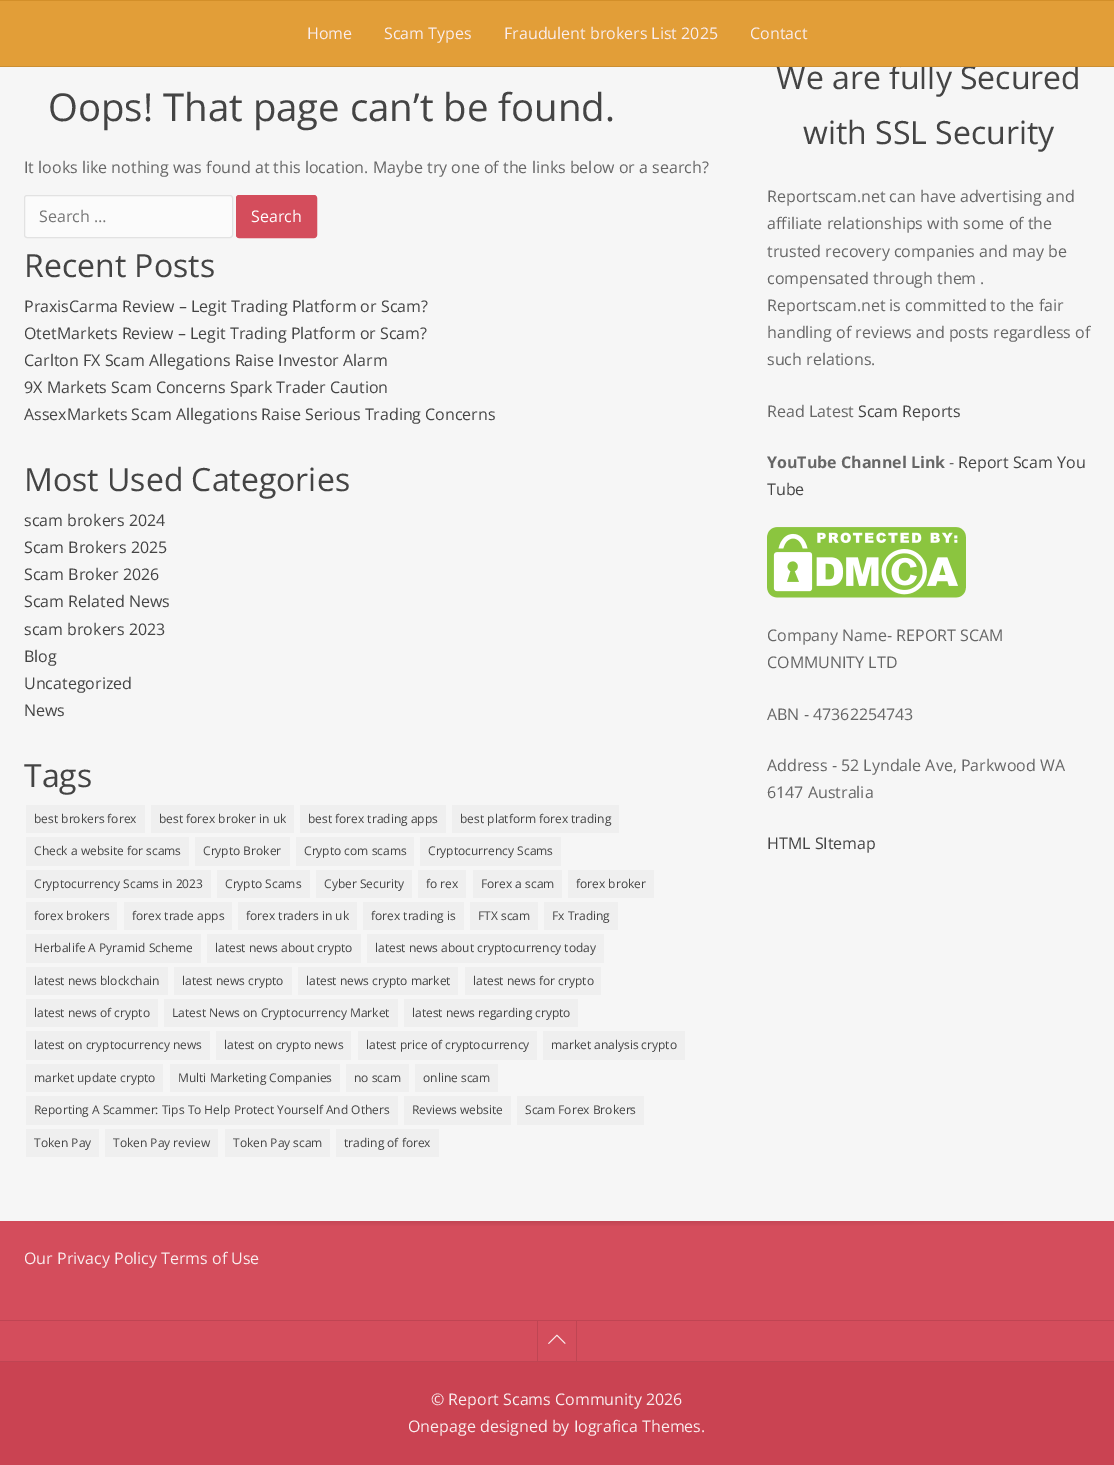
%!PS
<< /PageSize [1114 1465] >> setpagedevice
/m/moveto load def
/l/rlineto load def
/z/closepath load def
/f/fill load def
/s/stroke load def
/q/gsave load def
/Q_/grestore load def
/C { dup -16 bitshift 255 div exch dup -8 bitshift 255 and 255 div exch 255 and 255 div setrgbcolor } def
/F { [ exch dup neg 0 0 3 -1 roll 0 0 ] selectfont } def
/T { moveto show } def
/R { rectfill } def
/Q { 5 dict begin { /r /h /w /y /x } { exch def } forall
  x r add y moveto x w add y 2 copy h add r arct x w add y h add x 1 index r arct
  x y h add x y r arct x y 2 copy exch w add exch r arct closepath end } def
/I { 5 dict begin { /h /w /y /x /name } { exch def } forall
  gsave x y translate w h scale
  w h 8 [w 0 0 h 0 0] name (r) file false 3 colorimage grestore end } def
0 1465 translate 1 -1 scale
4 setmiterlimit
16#F6F6F6 C
0 0 1114 1465 R
/OpenSans-Regular 32 F
16#444444 C
(We are fully Secured) 776 89 T
16#E29E38 C
0 1 1114 65 R
16#D38F29 C
0 0 1114 1 R
16#CB8E32 C
0 66 1114 1 R
/OpenSans-Regular 16 F
16#FAEDEE C
(Home) 307 39 T
(Scam Types) 384 39 T
(Fraudulent brokers List 2025) 504 39 T
(Contact) 750 39 T
/OpenSans-Regular 38.4 F
16#444444 C
(Oops! That page can’t be found.) 48 121 T
/OpenSans-Regular 16 F
16#666666 C
(It looks like nothing was found at this location. Maybe try one of the links below or a search?) 24 173 T
16#FBFBFB C
24.5 195.5 208 42 2.5 Q q f Q_
16#E2E2E2 C
s
16#757575 C
(Search …) 39 222 T
16#D44D5C C
236.5 195.5 80 42 2.5 Q q f Q_
s
16#FFFFFF C
(Search) 251 222 T
/OpenSans-Regular 32 F
16#444444 C
(Recent Posts) 24 277 T
/OpenSans-Regular 16 F
(PraxisCarma Review – Legit Trading Platform or Scam?) 24 312 T
(OtetMarkets Review – Legit Trading Platform or Scam?) 24 339 T
(Carlton FX Scam Allegations Raise Investor Alarm) 24 366 T
(9X Markets Scam Concerns Spark Trader Caution) 24 393 T
(AssexMarkets Scam Allegations Raise Serious Trading Concerns) 24 420 T
/OpenSans-Regular 32 F
(Most Used Categories) 24 491 T
/OpenSans-Regular 16 F
(scam brokers 2024) 24 526 T
(Scam Brokers 2025) 24 553 T
(Scam Broker 2026) 24 580 T
(Scam Related News) 24 607 T
(scam brokers 2023) 24 635 T
(Blog) 24 662 T
(Uncategorized) 24 689 T
(News) 24 716 T
/OpenSans-Regular 32 F
(Tags) 24 787 T
16#EFEFEF C
26 805 119 28 R
/OpenSans-Regular 12 F
16#444444 C
(best brokers forex) 34 823 T
16#EFEFEF C
151 805 143 28 R
16#444444 C
(best forex broker in uk) 159 823 T
16#EFEFEF C
300 805 146 28 R
16#444444 C
(best forex trading apps) 308 823 T
16#EFEFEF C
452 805 167 28 R
16#444444 C
(best platform forex trading) 460 823 T
16#EFEFEF C
26 837 163 29 R
16#444444 C
(Check a website for scams) 34 855 T
16#EFEFEF C
195 837 95 29 R
16#444444 C
(Crypto Broker) 203 855 T
16#EFEFEF C
296 837 118 29 R
16#444444 C
(Crypto com scams) 304 855 T
16#EFEFEF C
420 837 141 29 R
16#444444 C
(Cryptocurrency Scams) 428 855 T
16#EFEFEF C
26 870 185 28 R
16#444444 C
(Cryptocurrency Scams in 2023) 34 888 T
16#EFEFEF C
217 870 93 28 R
16#444444 C
(Crypto Scams) 225 888 T
16#EFEFEF C
316 870 96 28 R
16#444444 C
(Cyber Security) 324 888 T
16#EFEFEF C
418 870 48 28 R
16#444444 C
(fo rex) 426 888 T
16#EFEFEF C
473 870 89 28 R
16#444444 C
(Forex a scam) 481 888 T
16#EFEFEF C
568 870 86 28 R
16#444444 C
(forex broker) 576 888 T
16#EFEFEF C
26 902 91 28 R
16#444444 C
(forex brokers) 34 920 T
16#EFEFEF C
124 902 108 28 R
16#444444 C
(forex trade apps) 132 920 T
16#EFEFEF C
238 902 119 28 R
16#444444 C
(forex traders in uk) 246 920 T
16#EFEFEF C
363 902 101 28 R
16#444444 C
(forex trading is) 371 920 T
16#EFEFEF C
470 902 68 28 R
16#444444 C
(FTX scam) 478 920 T
16#EFEFEF C
544 902 74 28 R
16#444444 C
(Fx Trading) 552 920 T
16#EFEFEF C
26 934 175 29 R
16#444444 C
(Herbalife A Pyramid Scheme) 34 952 T
16#EFEFEF C
207 934 154 29 R
16#444444 C
(latest news about crypto) 215 952 T
16#EFEFEF C
367 934 237 29 R
16#444444 C
(latest news about cryptocurrency today) 375 952 T
16#EFEFEF C
26 967 142 28 R
16#444444 C
(latest news blockchain) 34 985 T
16#EFEFEF C
174 967 118 28 R
16#444444 C
(latest news crypto) 182 985 T
16#EFEFEF C
298 967 160 28 R
16#444444 C
(latest news crypto market) 306 985 T
16#EFEFEF C
465 967 136 28 R
16#444444 C
(latest news for crypto) 473 985 T
16#EFEFEF C
26 999 132 28 R
16#444444 C
(latest news of crypto) 34 1017 T
16#EFEFEF C
164 999 234 28 R
16#444444 C
(Latest News on Cryptocurrency Market) 172 1017 T
16#EFEFEF C
404 999 174 28 R
16#444444 C
(latest news regarding crypto) 412 1017 T
16#EFEFEF C
26 1031 184 29 R
16#444444 C
(latest on cryptocurrency news) 34 1049 T
16#EFEFEF C
216 1031 135 29 R
16#444444 C
(latest on crypto news) 224 1049 T
16#EFEFEF C
358 1031 179 29 R
16#444444 C
(latest price of cryptocurrency) 366 1049 T
16#EFEFEF C
543 1031 142 29 R
16#444444 C
(market analysis crypto) 551 1049 T
16#EFEFEF C
26 1064 137 28 R
16#444444 C
(market update crypto) 34 1082 T
16#EFEFEF C
170 1064 170 28 R
16#444444 C
(Multi Marketing Companies) 178 1082 T
16#EFEFEF C
346 1064 63 28 R
16#444444 C
(no scam) 354 1082 T
16#EFEFEF C
415 1064 83 28 R
16#444444 C
(online scam) 423 1082 T
16#EFEFEF C
26 1096 372 29 R
16#444444 C
(Reporting A Scammer: Tips To Help Protect Yourself And Others) 34 1114 T
16#EFEFEF C
404 1096 107 29 R
16#444444 C
(Reviews website) 412 1114 T
16#EFEFEF C
517 1096 127 29 R
16#444444 C
(Scam Forex Brokers) 525 1114 T
16#EFEFEF C
26 1129 73 28 R
16#444444 C
(Token Pay) 34 1147 T
16#EFEFEF C
105 1129 113 28 R
16#444444 C
(Token Pay review) 113 1147 T
16#EFEFEF C
225 1129 105 28 R
16#444444 C
(Token Pay scam) 233 1147 T
16#EFEFEF C
336 1129 103 28 R
16#444444 C
(trading of forex) 344 1147 T
/OpenSans-Regular 32 F
(with SSL Security) 803 144 T
/OpenSans-Regular 16 F
16#666666 C
(Reportscam.net can have advertising and) 767 202 T
(affiliate relationships with some of the) 767 229 T
(trusted recovery companies and may be) 767 257 T
(compensated through them .) 767 284 T
(Reportscam.net is committed to the fair) 767 311 T
(handling of reviews and posts regardless of) 767 338 T
(such relations.) 767 365 T
(Read Latest) 767 417 T
16#444444 C
(Scam Reports) 858 417 T
/OpenSans-Bold 16 F
16#666666 C
(YouTube Channel Link) 767 468 T
/OpenSans-Regular 16 F
(-) 949 468 T
16#444444 C
(Report Scam You) 958 468 T
(Tube) 767 495 T
(1.rgb) 767 527 199 71 I
16#666666 C
(Company Name- REPORT SCAM) 767 641 T
(COMMUNITY LTD) 767 668 T
(ABN - 47362254743) 767 720 T
(Address - 52 Lyndale Ave, Parkwood WA) 767 771 T
(6147 Australia) 767 798 T
16#444444 C
(HTML SItemap) 767 849 T
16#D44D5C C
0 1226 1114 135 R
q 0 1221 m 1114 0 l 0 5 l -1114 0 l z clip newpath 557 1221 translate 788 7.1 scale
<< /ShadingType 3 /ColorSpace /DeviceRGB /Coords [0 0 0 0 0 1] /Extend [true true] /Function << /FunctionType 3 /Domain [0 1] /Functions [<< /FunctionType 2 /Domain [0 1] /C0 [.749 .271 .325] /C1 [.831 .302 .361] /N 1 >> << /FunctionType 2 /Domain [0 1] /C0 [.831 .302 .361] /C1 [.831 .302 .361] /N 1 >>] /Bounds [.8] /Encode [0 1 0 1] >> >> shfill Q_
16#FAEDEE C
(Our Privacy Policy Terms of Use) 24 1264 T
16#BF4553 C
0 1320 1114 1 R
0 1361 1114 1 R
576 1321 1 40 R
537 1321 1 40 R
(2.rgb) 548 1334 18 10 I
16#CA4352 C
0 1362 1114 103 R
16#FAEDEE C
(© Report Scams Community 2026) 431 1405 T
(Onepage designed by Iografica Themes.) 408 1432 T
showpage
